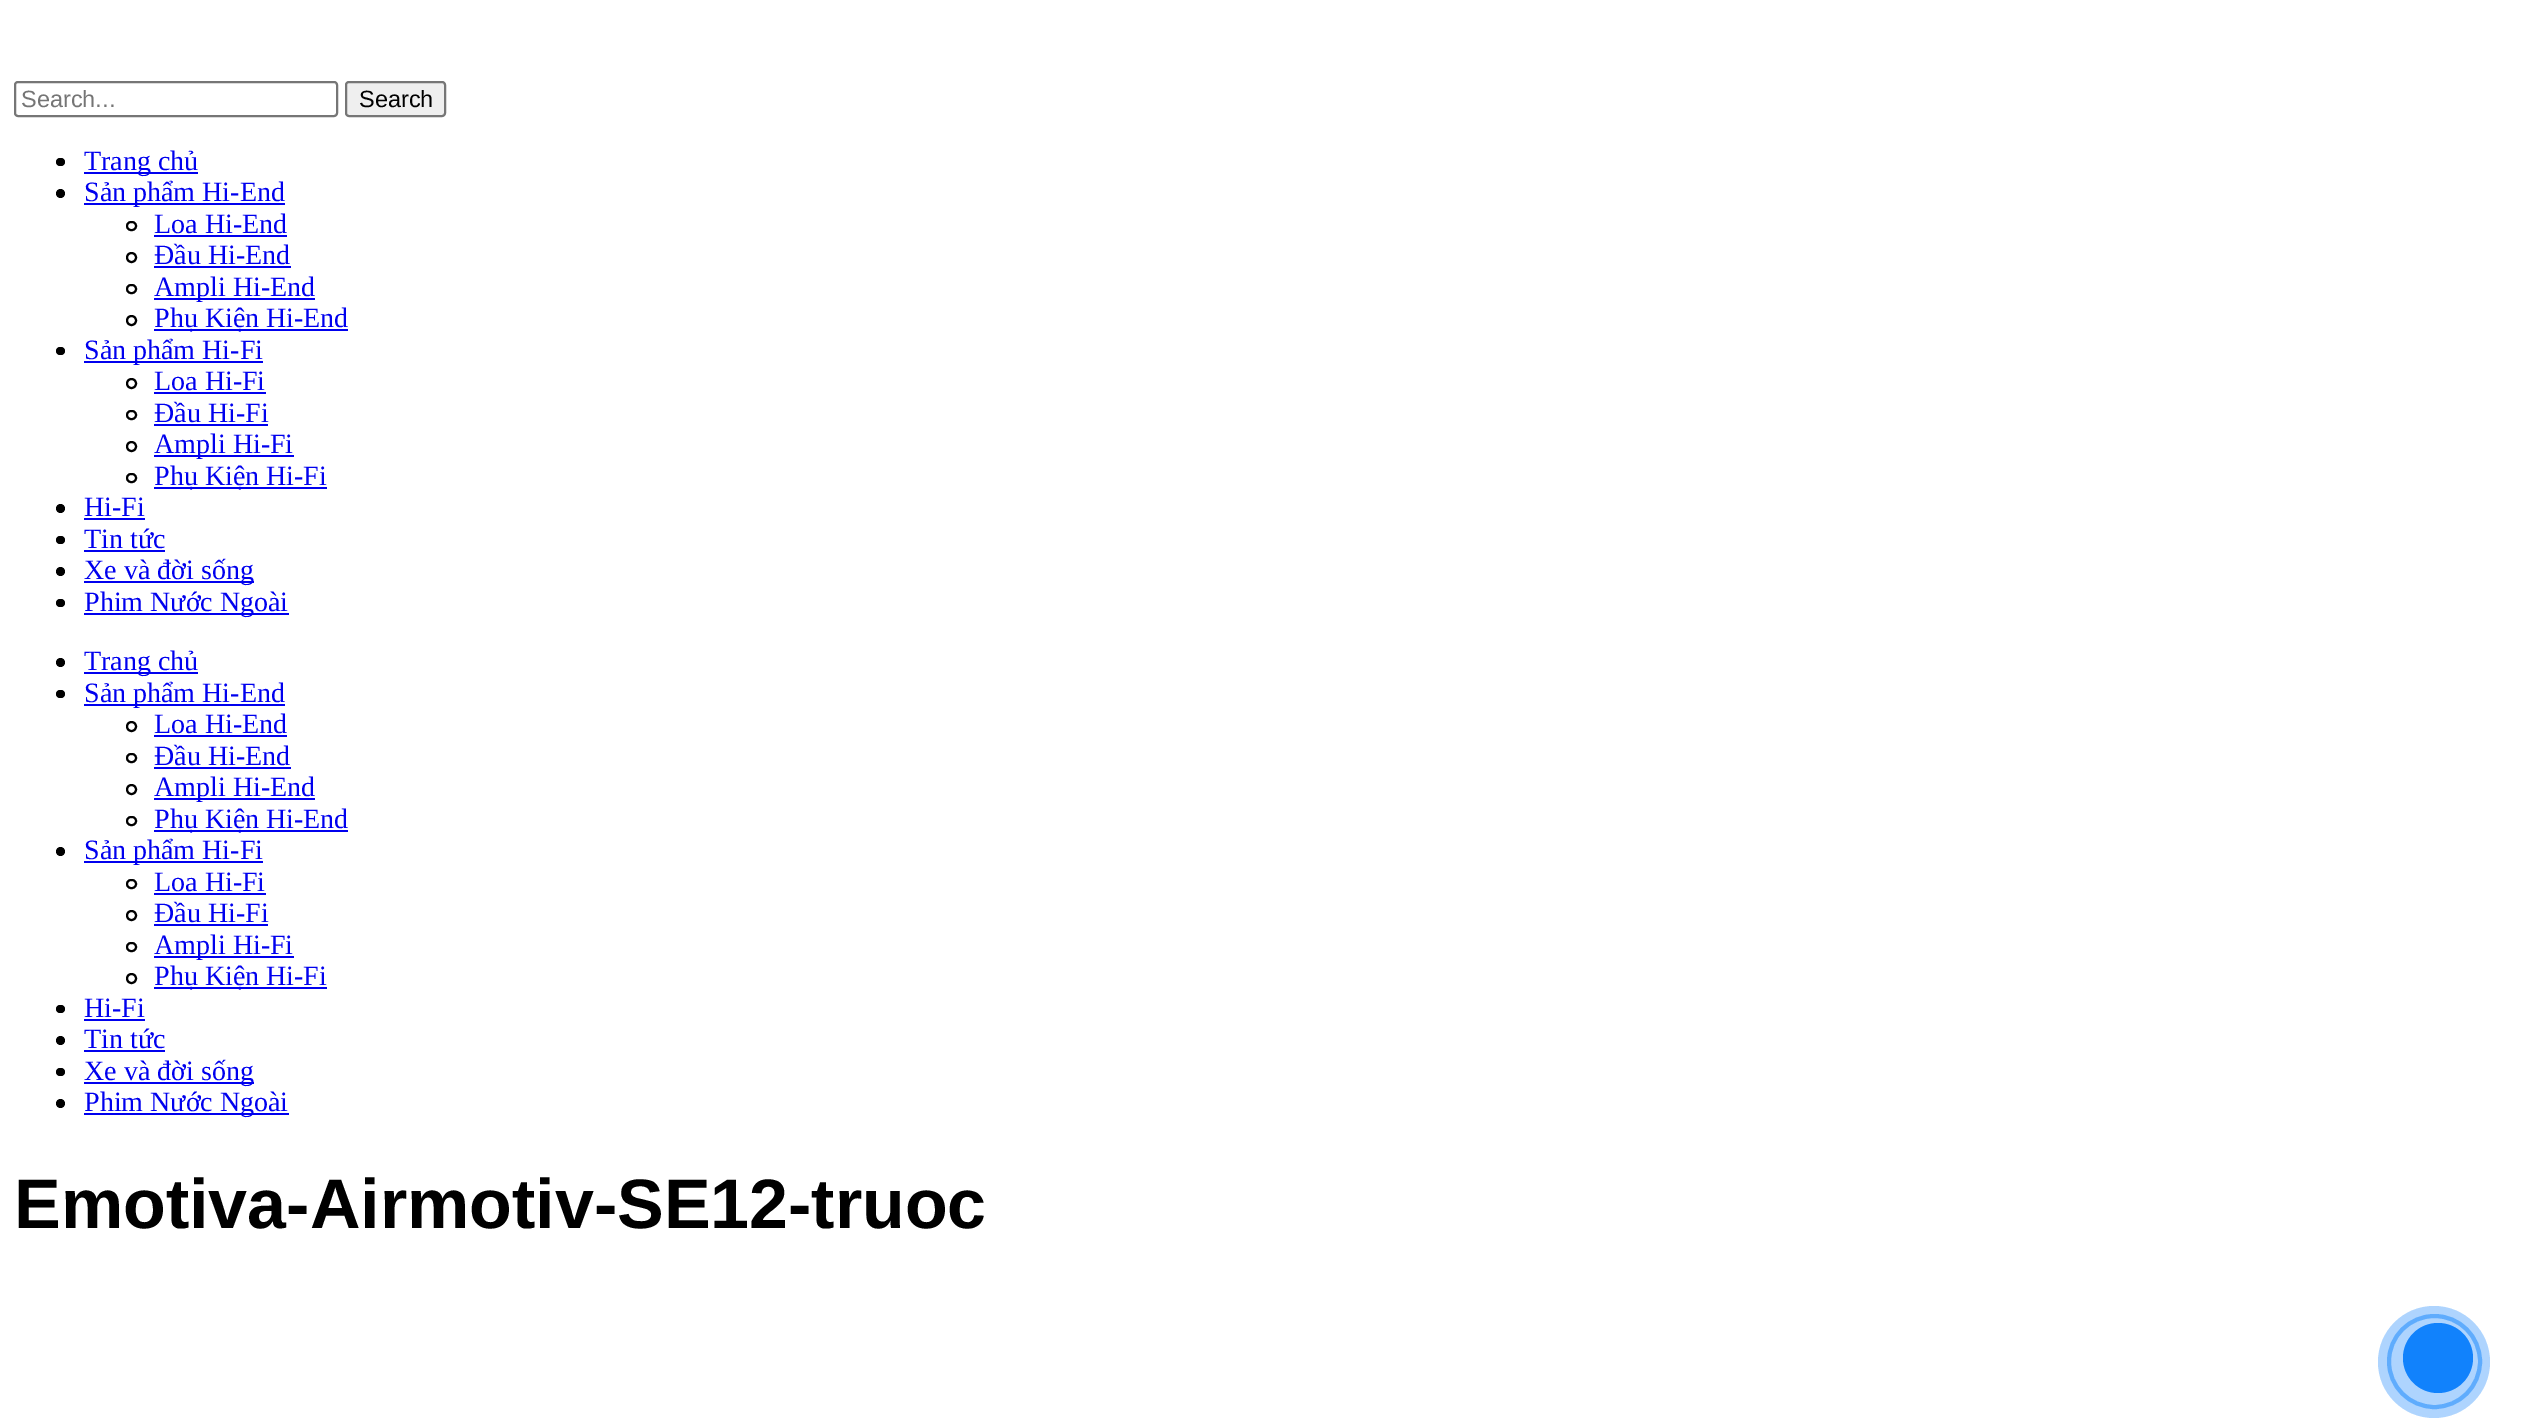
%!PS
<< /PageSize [2542 1428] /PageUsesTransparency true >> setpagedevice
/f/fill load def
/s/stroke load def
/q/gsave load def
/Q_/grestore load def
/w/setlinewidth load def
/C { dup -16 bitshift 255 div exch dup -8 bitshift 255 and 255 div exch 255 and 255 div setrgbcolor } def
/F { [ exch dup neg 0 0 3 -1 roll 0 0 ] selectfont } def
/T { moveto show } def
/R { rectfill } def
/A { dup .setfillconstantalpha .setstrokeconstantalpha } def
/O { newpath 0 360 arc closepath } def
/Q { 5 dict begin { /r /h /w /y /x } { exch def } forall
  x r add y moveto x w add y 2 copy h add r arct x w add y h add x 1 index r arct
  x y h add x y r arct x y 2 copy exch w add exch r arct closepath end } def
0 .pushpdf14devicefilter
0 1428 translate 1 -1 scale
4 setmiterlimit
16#FFFFFF C
0 0 2542 1428 R
16#767676 C
2 w
15 82 322 34 3 Q s
/LiberationSans-Regular 23.5 F
16#757575 C
(Search...) 21 107 T
16#EFEFEF C
346 82 99 34 3 Q q f Q_
16#767676 C
s
16#000000 C
(Search) 359 107 T
56 158 9 8 4 Q f
16#0000EE C
84 172 114 2 R
/LiberationSerif-Regular 28 F
(Trang chủ) 84 170 T
16#000000 C
60.5 193.5 4.5 O f
16#0000EE C
84 203 201 2 R
(Sản phẩm Hi-End) 84 201 T
16#000000 C
127 222 9 8 4 Q s
16#0000EE C
(Loa Hi-End) 154 233 T
154 235 133 2 R
16#000000 C
131.5 257.5 4.5 O s
16#0000EE C
(Đầu Hi-End) 154 264 T
154 266 137 2 R
16#000000 C
127 285 9 8 4 Q s
16#0000EE C
154 298 161 2 R
(Ampli Hi-End) 154 296 T
16#000000 C
131.5 320.5 4.5 O s
16#0000EE C
154 329 194 2 R
(Phụ Kiện Hi-End) 154 327 T
16#000000 C
56 347 9 8 4 Q f
16#0000EE C
84 361 179 2 R
(Sản phẩm Hi-Fi) 84 359 T
16#000000 C
131.5 383.5 4.5 O s
16#0000EE C
(Loa Hi-Fi) 154 390 T
154 392 112 2 R
16#000000 C
127 411 9 8 4 Q s
16#0000EE C
(Đầu Hi-Fi) 154 422 T
154 424 114 2 R
16#000000 C
131.5 446.5 4.5 O s
16#0000EE C
154 455 140 2 R
(Ampli Hi-Fi) 154 453 T
16#000000 C
127 474 9 8 4 Q s
16#0000EE C
154 487 173 2 R
(Phụ Kiện Hi-Fi) 154 485 T
16#000000 C
60.5 508.5 4.5 O f
16#0000EE C
(Hi-Fi) 84 516 T
84 518 61 2 R
16#000000 C
56 536 9 8 4 Q f
16#0000EE C
(Tin tức) 84 548 T
84 550 81 2 R
16#000000 C
60.5 571.5 4.5 O f
16#0000EE C
84 581 170 2 R
(Xe và đời sống) 84 579 T
16#000000 C
56 599 9 8 4 Q f
16#0000EE C
84 613 205 2 R
(Phim Nước Ngoài) 84 611 T
16#000000 C
60.5 662.5 4.5 O f
16#0000EE C
84 672 114 2 R
(Trang chủ) 84 670 T
16#000000 C
56 690 9 8 4 Q f
16#0000EE C
84 704 201 2 R
(Sản phẩm Hi-End) 84 702 T
16#000000 C
131.5 726.5 4.5 O s
16#0000EE C
(Loa Hi-End) 154 733 T
154 735 133 2 R
16#000000 C
127 754 9 8 4 Q s
16#0000EE C
(Đầu Hi-End) 154 765 T
154 767 137 2 R
16#000000 C
131.5 789.5 4.5 O s
16#0000EE C
154 798 161 2 R
(Ampli Hi-End) 154 796 T
16#000000 C
127 817 9 8 4 Q s
16#0000EE C
154 830 194 2 R
(Phụ Kiện Hi-End) 154 828 T
16#000000 C
60.5 851.5 4.5 O f
16#0000EE C
84 861 179 2 R
(Sản phẩm Hi-Fi) 84 859 T
16#000000 C
127 880 9 8 4 Q s
16#0000EE C
(Loa Hi-Fi) 154 891 T
154 893 112 2 R
16#000000 C
131.5 915.5 4.5 O s
16#0000EE C
(Đầu Hi-Fi) 154 922 T
154 924 114 2 R
16#000000 C
127 943 9 8 4 Q s
16#0000EE C
154 956 140 2 R
(Ampli Hi-Fi) 154 954 T
16#000000 C
131.5 978.5 4.5 O s
16#0000EE C
154 987 173 2 R
(Phụ Kiện Hi-Fi) 154 985 T
16#000000 C
56 1005 9 8 4 Q f
16#0000EE C
(Hi-Fi) 84 1017 T
84 1019 61 2 R
16#000000 C
60.5 1040.5 4.5 O f
16#0000EE C
(Tin tức) 84 1048 T
84 1050 81 2 R
16#000000 C
56 1068 9 8 4 Q f
16#0000EE C
84 1082 170 2 R
(Xe và đời sống) 84 1080 T
16#000000 C
60.5 1103.5 4.5 O f
16#0000EE C
84 1113 205 2 R
(Phim Nước Ngoài) 84 1111 T
/LiberationSans-Bold 70 F
16#000000 C
(Emotiva-Airmotiv-SE12-truoc) 14 1228 T
16#88C1FE C
4 w
2434.5 1361.5 45.5 O s
0.34 A
16#1182FC C
2434 1362 56 O f
1 A
2438 1358 35 O f
.poppdf14devicefilter showpage
